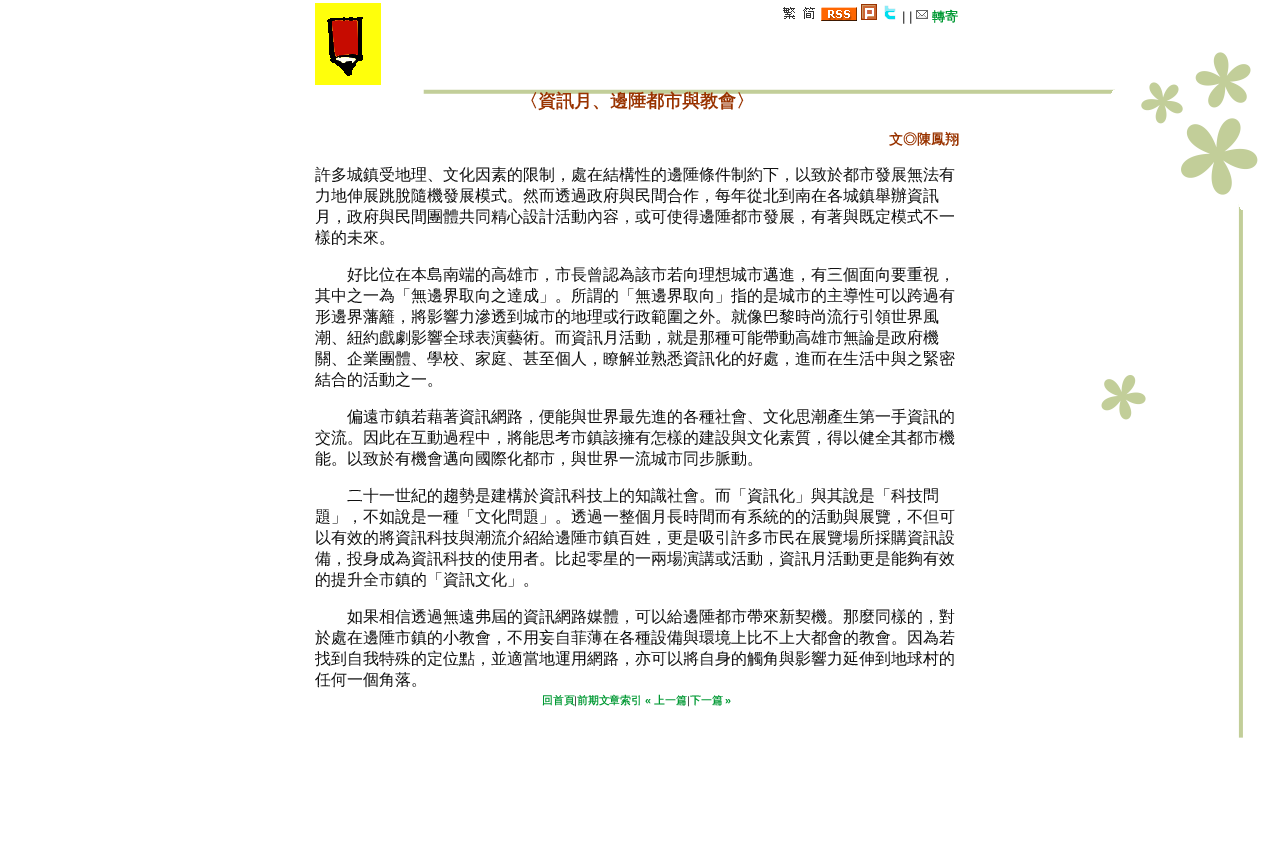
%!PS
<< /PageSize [1273 855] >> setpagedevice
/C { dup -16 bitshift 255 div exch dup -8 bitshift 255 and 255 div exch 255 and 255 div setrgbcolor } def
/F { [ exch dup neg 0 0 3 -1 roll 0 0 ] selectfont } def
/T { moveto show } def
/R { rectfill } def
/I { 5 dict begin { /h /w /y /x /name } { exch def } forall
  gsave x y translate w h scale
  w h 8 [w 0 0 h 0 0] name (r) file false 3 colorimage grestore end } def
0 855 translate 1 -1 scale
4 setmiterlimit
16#FFFFFF C
0 0 1273 855 R
(1.rgb) 423 52 835 686 I
(2.rgb) 315 3 66 82 I
(3.rgb) 783 7 12 12 I
(4.rgb) 803 7 12 12 I
(5.rgb) 821 7 36 14 I
(6.rgb) 861 4 16 16 I
(7.rgb) 884 5 12 15 I
/LiberationSans-Regular 13 F
16#111111 C
(| |) 902 21 T
(8.rgb) 916 10 12 9 I
/WenQuanYiZenHei-Bold 13 F
16#009933 C
(轉寄) 932 21 T
/WenQuanYiZenHei-Bold 18 F
16#993300 C
(〈資訊月、邊陲都市與教會〉) 520 107 T
/WenQuanYiZenHei-Bold 14 F
(文◎陳鳳翔) 889 144 T
/WenQuanYiZenHei-Medium 16 F
16#111111 C
(許多城鎮受地理、文化因素的限制，處在結構性的邊陲條件制約下，以致於都市發展無法有) 315 180 T
(力地伸展跳脫隨機發展模式。然而透過政府與民間合作，每年從北到南在各城鎮舉辦資訊) 315 201 T
(月，政府與民間團體共同精心設計活動內容，或可使得邊陲都市發展，有著與既定模式不一) 315 222 T
(樣的未來。) 315 243 T
(好比位在本島南端的高雄市，市長曾認為該市若向理想城市邁進，有三個面向要重視，) 347 280 T
(其中之一為「無邊界取向之達成」。所謂的「無邊界取向」指的是城市的主導性可以跨過有) 315 301 T
(形邊界藩籬，將影響力滲透到城市的地理或行政範圍之外。就像巴黎時尚流行引領世界風) 315 322 T
(潮、紐約戲劇影響全球表演藝術。而資訊月活動，就是那種可能帶動高雄市無論是政府機) 315 343 T
(關、企業團體、學校、家庭、甚至個人，瞭解並熟悉資訊化的好處，進而在生活中與之緊密) 315 364 T
(結合的活動之一。) 315 385 T
(偏遠市鎮若藉著資訊網路，便能與世界最先進的各種社會、文化思潮產生第一手資訊的) 347 422 T
(交流。因此在互動過程中，將能思考市鎮該擁有怎樣的建設與文化素質，得以健全其都市機) 315 443 T
(能。以致於有機會邁向國際化都市，與世界一流城市同步脈動。) 315 464 T
(二十一世紀的趨勢是建構於資訊科技上的知識社會。而「資訊化」與其說是「科技問) 347 501 T
(題」，不如說是一種「文化問題」。透過一整個月長時間而有系統的的活動與展覽，不但可) 315 522 T
(以有效的將資訊科技與潮流介紹給邊陲市鎮百姓，更是吸引許多市民在展覽場所採購資訊設) 315 543 T
(備，投身成為資訊科技的使用者。比起零星的一兩場演講或活動，資訊月活動更是能夠有效) 315 564 T
(的提升全市鎮的「資訊文化」。) 315 585 T
(如果相信透過無遠弗屆的資訊網路媒體，可以給邊陲都市帶來新契機。那麼同樣的，對) 347 622 T
(於處在邊陲市鎮的小教會，不用妄自菲薄在各種設備與環境上比不上大都會的教會。因為若) 315 643 T
(找到自我特殊的定位點，並適當地運用網路，亦可以將自身的觸角與影響力延伸到地球村的) 315 664 T
(任何一個角落。) 315 685 T
/WenQuanYiZenHei-Bold 10.75 F
16#009933 C
(回首頁) 542 704 T
/LiberationSans-Regular 10.75 F
16#111111 C
(|) 574 704 T
/WenQuanYiZenHei-Bold 10.75 F
16#009933 C
(前期文章索引) 577 704 T
/LiberationSans-Bold 10.75 F
(«) 645 704 T
/WenQuanYiZenHei-Bold 10.75 F
(上一篇) 654 704 T
/LiberationSans-Regular 10.75 F
16#111111 C
(|) 687 704 T
/WenQuanYiZenHei-Bold 10.75 F
16#009933 C
(下一篇) 690 704 T
/LiberationSans-Bold 10.75 F
(») 725 704 T
showpage
